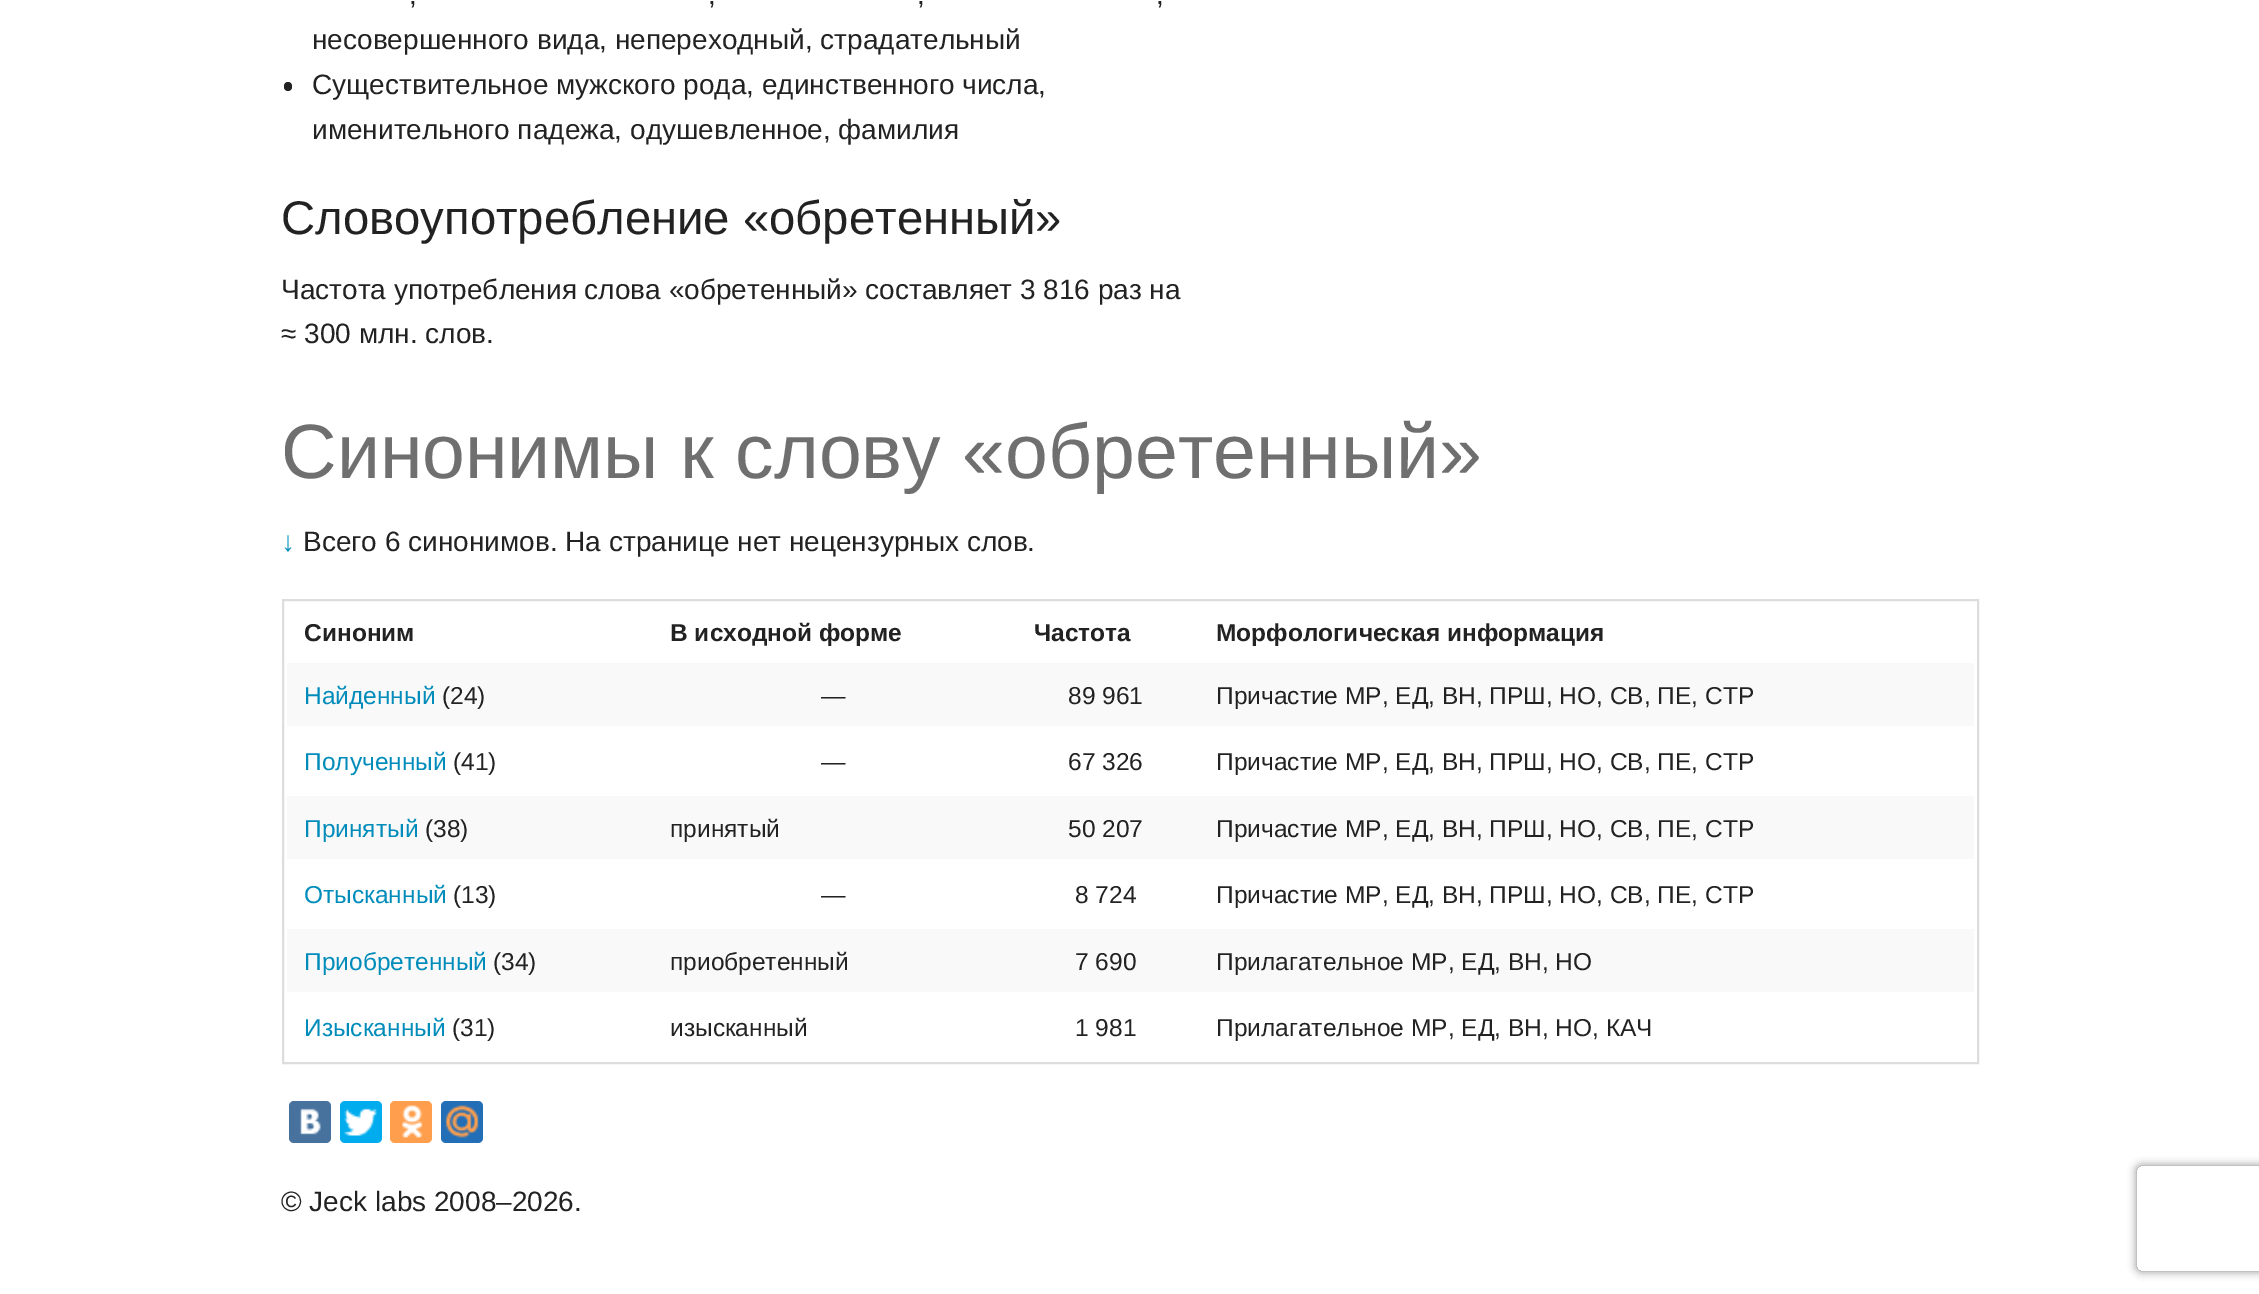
%!PS
<< /PageSize [2259 1294] /PageUsesTransparency true >> setpagedevice
/m/moveto load def
/l/rlineto load def
/c/rcurveto load def
/z/closepath load def
/f/fill load def
/q/gsave load def
/Q_/grestore load def
/w/setlinewidth load def
/C { dup -16 bitshift 255 div exch dup -8 bitshift 255 and 255 div exch 255 and 255 div setrgbcolor } def
/F { [ exch dup neg 0 0 3 -1 roll 0 0 ] selectfont } def
/T { moveto show } def
/R { rectfill } def
/A { dup .setfillconstantalpha .setstrokeconstantalpha } def
/Q { 5 dict begin { /r /h /w /y /x } { exch def } forall
  x r add y moveto x w add y 2 copy h add r arct x w add y h add x 1 index r arct
  x y h add x y r arct x y 2 copy exch w add exch r arct closepath end } def
/S { 12 dict begin { /a /b /q /h /w /y /x } { exch def } forall gsave /was 0 def
  9 -2 -9 { dup b mul 4 div /e exch def 1 sub .425 mul 2.718 exch exp 1 add a .99 .min exch div /now exch def
    1 1 now sub 1 was sub div sub A /was now def
    w h .min e 2 mul add 0 gt { x e sub y e sub w e 2 mul add h e 2 mul add
      q e add b .6 mul add w h .min 2 div e add .min 0 .max Q fill } if } for grestore end } def
/I { 5 dict begin { /h /w /y /x /name } { exch def } forall
  gsave x y translate w h scale
  w h 8 [w 0 0 h 0 0] name (r) file false 3 colorimage grestore end } def
0 .pushpdf14devicefilter
0 1294 translate 1 -1 scale
4 setmiterlimit
16#FFFFFF C
0 0 2259 1294 R
/LiberationSans-Regular 28 F
16#222222 C
(,) 409 4 T
(,) 708 4 T
(,) 917 4 T
(,) 1156 4 T
(несовершенного вида, непереходный, страдательный) 312 49 T
284 82 8 9 4 Q f
(Существительное мужского рода, единственного числа,) 312 94 T
(именительного падежа, одушевленное, фамилия) 312 139 T
/LiberationSans-Regular 47.25 F
(Словоупотребление «обретенный») 281 234 T
/LiberationSans-Regular 28 F
(Частота употребления слова «обретенный» составляет 3 816 раз на) 281 299 T
(≈ 300 млн. слов.) 281 343 T
/LiberationSans-Regular 77 F
16#6F6F6F C
(Синонимы к слову «обретенный») 281 478 T
/LiberationSans-Regular 28 F
16#008CBA C
(↓) 281 551 T
16#222222 C
(Всего 6 синонимов. На странице нет нецензурных слов.) 303 551 T
16#DDDDDD C
2 w
283 600 1695 463 rectstroke
/LiberationSans-Bold 24.5 F
16#222222 C
(Синоним) 304 641 T
(В исходной форме) 670 641 T
(Частота) 1034 641 T
(Морфологическая информация) 1216 641 T
16#F9F9F9 C
287 663 1687 63 R
/LiberationSans-Regular 24.5 F
16#008CBA C
(Найденный) 304 704 T
16#222222 C
(\(24\)) 442 704 T
(—) 821 704 T
(89 961) 1068 704 T
(Причастие МР, ЕД, ВН, ПРШ, НО, СВ, ПЕ, СТР) 1216 704 T
16#008CBA C
(Полученный) 304 770 T
16#222222 C
(\(41\)) 453 770 T
(—) 821 770 T
(67 326) 1068 770 T
(Причастие МР, ЕД, ВН, ПРШ, НО, СВ, ПЕ, СТР) 1216 770 T
16#F9F9F9 C
287 796 1687 63 R
16#008CBA C
(Принятый) 304 837 T
16#222222 C
(\(38\)) 425 837 T
(принятый) 670 837 T
(50 207) 1068 837 T
(Причастие МР, ЕД, ВН, ПРШ, НО, СВ, ПЕ, СТР) 1216 837 T
16#008CBA C
(Отысканный) 304 903 T
16#222222 C
(\(13\)) 453 903 T
(—) 821 903 T
(8 724) 1075 903 T
(Причастие МР, ЕД, ВН, ПРШ, НО, СВ, ПЕ, СТР) 1216 903 T
16#F9F9F9 C
287 929 1687 63 R
16#008CBA C
(Приобретенный) 304 970 T
16#222222 C
(\(34\)) 493 970 T
(приобретенный) 670 970 T
(7 690) 1075 970 T
(Прилагательное МР, ЕД, ВН, НО) 1216 970 T
16#008CBA C
(Изысканный) 304 1036 T
16#222222 C
(\(31\)) 452 1036 T
(изысканный) 670 1036 T
(1 981) 1075 1036 T
(Прилагательное МР, ЕД, ВН, НО, КАЧ) 1216 1036 T
16#48729E C
289 1101 42 42 5 Q f
(1.rgb) 300 1108 21 27 I
16#00ACED C
340 1101 42 42 5 Q f
(2.rgb) 344 1108 33 28 I
16#FF9F4D C
390 1101 42 42 5 Q f
(3.rgb) 402 1105 21 33 I
16#226EB7 C
441 1101 42 42 5 Q f
(4.rgb) 445 1105 34 33 I
/LiberationSans-Regular 28 F
16#222222 C
(© Jeck labs 2008–2026.) 281 1211 T
q
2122 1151 m 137 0 l 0 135 l -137 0 l z 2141 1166 m 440 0 l 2 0 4 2 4 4 c 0 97 l 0 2 -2 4 -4 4 c -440 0 l -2 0 -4 -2 -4 -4 c 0 -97 l 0 -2 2 -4 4 -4 c z eoclip newpath
16#808080 C
2137 1166 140 105 4 4.5 1 S
Q_
.poppdf14devicefilter showpage
